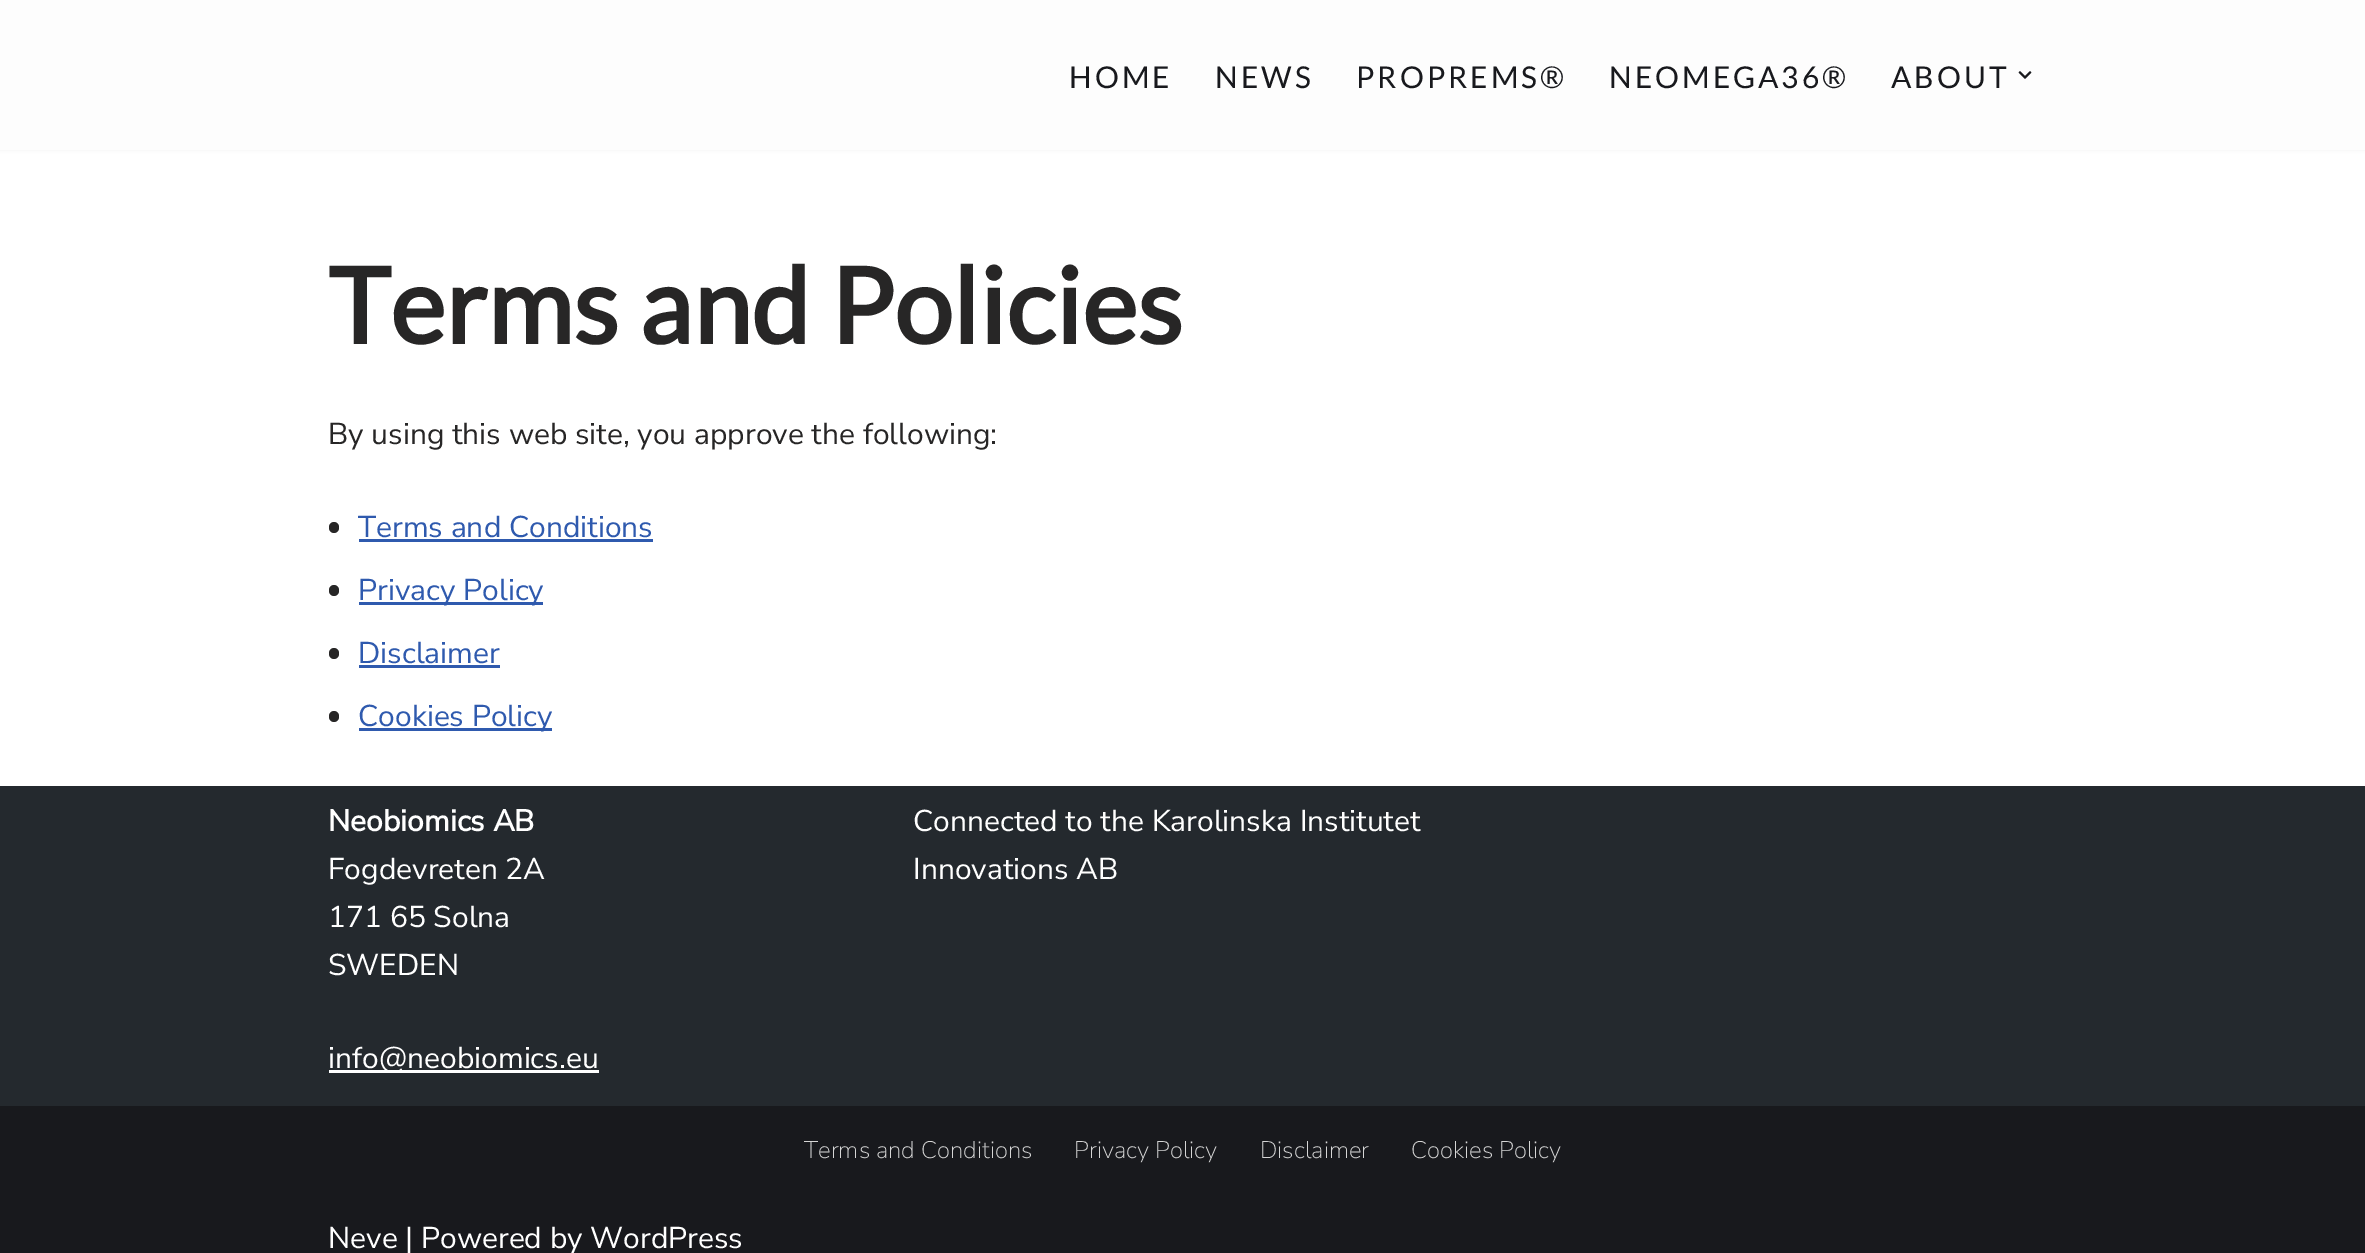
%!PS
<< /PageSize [2365 1253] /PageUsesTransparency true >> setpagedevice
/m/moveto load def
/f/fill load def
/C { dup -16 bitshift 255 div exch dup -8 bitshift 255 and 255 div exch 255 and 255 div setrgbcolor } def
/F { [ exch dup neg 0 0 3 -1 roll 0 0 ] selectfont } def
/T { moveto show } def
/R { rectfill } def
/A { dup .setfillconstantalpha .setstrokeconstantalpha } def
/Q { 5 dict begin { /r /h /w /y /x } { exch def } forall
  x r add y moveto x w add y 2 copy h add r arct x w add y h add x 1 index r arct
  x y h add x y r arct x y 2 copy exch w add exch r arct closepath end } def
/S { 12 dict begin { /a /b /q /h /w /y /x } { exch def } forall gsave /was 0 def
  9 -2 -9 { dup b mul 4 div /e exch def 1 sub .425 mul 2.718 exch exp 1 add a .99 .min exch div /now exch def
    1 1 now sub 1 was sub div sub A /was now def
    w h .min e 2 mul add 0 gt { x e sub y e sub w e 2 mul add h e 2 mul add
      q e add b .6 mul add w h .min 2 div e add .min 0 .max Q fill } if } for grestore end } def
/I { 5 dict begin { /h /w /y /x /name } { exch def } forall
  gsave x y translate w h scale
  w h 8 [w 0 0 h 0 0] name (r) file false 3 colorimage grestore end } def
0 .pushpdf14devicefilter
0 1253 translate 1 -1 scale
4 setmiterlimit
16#FFFFFF C
0 0 2365 1253 R
16#000000 C
0 -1 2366 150 0 2 .1 S
16#FDFDFD C
0 0 2365 150 R
/Lato-Regular 30 F
16#18191D C
1069 88 m 3 0 (HOME) ashow
1215 88 m 3 0 (NEWS) ashow
1356 88 m 3 0 (PROPREMS®) ashow
1609 88 m 3 0 (NEOMEGA36®) ashow
1891 88 m 3 0 (ABOUT) ashow
(1.rgb) 2018 71 14 8 I
/Lato-Bold 105 F
16#272626 C
(Terms and Policies) 328 344 T
/NunitoSans-Regular 30 F
(By using this web site, you approve the following:) 328 444 T
329 522 10 11 5 Q f
16#2F5AAE C
(Terms and Conditions) 358 537 T
359 539 294 3 R
16#272626 C
329 585 10 11 5 Q f
16#2F5AAE C
359 602 184 3 R
(Privacy Policy) 358 600 T
16#272626 C
329 648 10 11 5 Q f
16#2F5AAE C
(Disclaimer) 358 663 T
359 665 141 3 R
16#272626 C
329 711 10 11 5 Q f
16#2F5AAE C
359 728 193 3 R
(Cookies Policy) 358 726 T
16#24292E C
0 786 2365 320 R
/NunitoSans-Bold 30 F
16#FFFFFF C
(Neobiomics AB) 328 831 T
/NunitoSans-Regular 30 F
(Fogdevreten 2A) 328 879 T
(171 65 Solna) 328 927 T
(SWEDEN) 328 975 T
329 1070 270 3 R
(info@neobiomics.eu) 328 1068 T
(Connected to the Karolinska Institutet) 913 831 T
(Innovations AB) 913 879 T
16#18191D C
0 1106 2365 147 R
/NunitoSans-ExtraLight 24 F
16#D6D6D6 C
(Terms and Conditions) 804 1158 T
(Privacy Policy) 1074 1158 T
(Disclaimer) 1260 1158 T
(Cookies Policy) 1411 1158 T
/NunitoSans-Regular 30 F
16#FFFFFF C
(Neve | Powered by WordPress) 328 1248 T
.poppdf14devicefilter showpage
